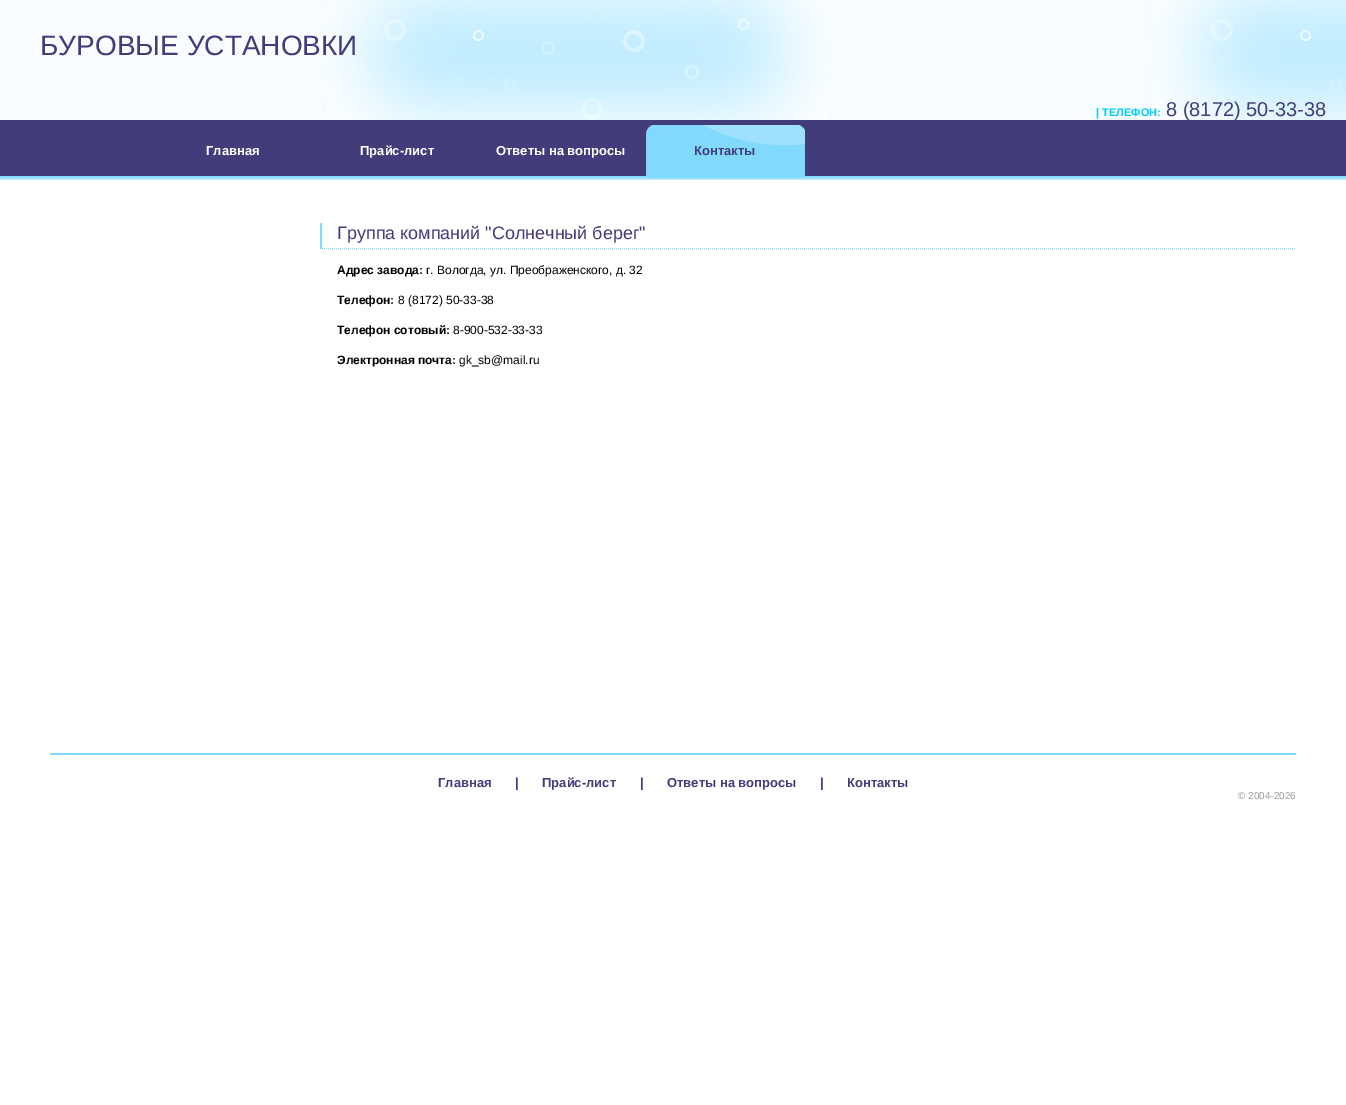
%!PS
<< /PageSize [1346 1105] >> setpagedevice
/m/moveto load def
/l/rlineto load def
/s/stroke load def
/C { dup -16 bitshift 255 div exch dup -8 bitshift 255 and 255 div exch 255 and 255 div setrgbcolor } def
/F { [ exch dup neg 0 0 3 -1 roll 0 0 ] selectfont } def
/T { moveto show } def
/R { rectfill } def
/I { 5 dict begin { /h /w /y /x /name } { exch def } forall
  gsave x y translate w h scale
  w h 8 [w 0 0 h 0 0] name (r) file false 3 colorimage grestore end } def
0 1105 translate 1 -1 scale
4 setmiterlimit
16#FFFFFF C
0 0 1346 1105 R
(1.rgb) 0 0 1346 120 I
/LiberationSans-Regular 28 F
16#423C7A C
(БУРОВЫЕ УСТАНОВКИ) 40 55 T
/LiberationSans-Bold 11 F
16#00CCFF C
(| ТЕЛЕФОН:) 1096 116 T
/LiberationSans-Regular 20 F
16#423C7A C
(8 \(8172\) 50-33-38) 1166 116 T
0 120 1346 56 R
(2.rgb) 0 176 1346 4 I
/LiberationSans-Bold 13 F
16#FFFFFF C
(Главная) 206 155 T
(Прайс-лист) 360 155 T
(Ответы на вопросы) 496 155 T
(3.rgb) 646 125 159 53 I
16#423C7A C
(Контакты) 694 155 T
16#81D9FD C
[1 1] 0 setdash
320 248.5 m 976 0 l s
320 223 2 26 R
/LiberationSans-Regular 18 F
16#423C7A C
(Группа компаний "Солнечный берег") 337 239 T
/LiberationSans-Bold 12 F
16#000000 C
(Адрес завода:) 337 274 T
/LiberationSans-Regular 12 F
(г. Вологда, ул. Преображенского, д. 32) 426 274 T
/LiberationSans-Bold 12 F
(Телефон:) 337 304 T
/LiberationSans-Regular 12 F
(8 \(8172\) 50-33-38) 398 304 T
/LiberationSans-Bold 12 F
(Телефон сотовый:) 337 334 T
/LiberationSans-Regular 12 F
(8-900-532-33-33) 453 334 T
/LiberationSans-Bold 12 F
(Электронная почта:) 337 364 T
/LiberationSans-Regular 12 F
(gk_sb@mail.ru) 459 364 T
16#81D9FD C
50 753 1246 2 R
/LiberationSans-Bold 13 F
16#423C7A C
(Главная) 438 787 T
(|) 515 787 T
(Прайс-лист) 542 787 T
(|) 640 787 T
(Ответы на вопросы) 667 787 T
(|) 820 787 T
(Контакты) 847 787 T
/LiberationSans-Regular 10 F
16#999999 C
(© 2004-2026) 1238 799 T
showpage
